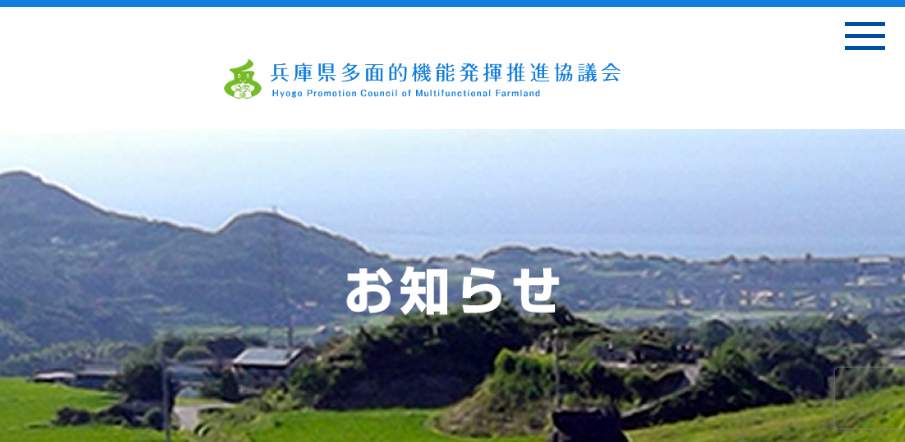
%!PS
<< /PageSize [905 442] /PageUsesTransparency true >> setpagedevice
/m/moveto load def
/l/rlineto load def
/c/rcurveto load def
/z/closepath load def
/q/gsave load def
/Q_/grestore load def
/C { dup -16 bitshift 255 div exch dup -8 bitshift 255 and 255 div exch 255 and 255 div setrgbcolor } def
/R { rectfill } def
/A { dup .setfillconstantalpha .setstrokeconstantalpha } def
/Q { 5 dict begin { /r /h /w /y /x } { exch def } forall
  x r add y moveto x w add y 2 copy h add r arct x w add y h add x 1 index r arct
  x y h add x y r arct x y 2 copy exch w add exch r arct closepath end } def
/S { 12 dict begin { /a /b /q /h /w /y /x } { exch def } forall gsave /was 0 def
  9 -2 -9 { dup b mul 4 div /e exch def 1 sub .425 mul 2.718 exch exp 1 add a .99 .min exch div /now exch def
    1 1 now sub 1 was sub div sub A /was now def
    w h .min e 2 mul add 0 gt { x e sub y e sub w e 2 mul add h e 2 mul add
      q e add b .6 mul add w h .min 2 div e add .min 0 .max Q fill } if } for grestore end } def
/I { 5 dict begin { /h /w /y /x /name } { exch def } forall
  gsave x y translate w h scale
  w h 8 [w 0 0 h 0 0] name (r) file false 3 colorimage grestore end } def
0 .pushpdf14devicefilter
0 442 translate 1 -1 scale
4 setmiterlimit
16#FFFFFF C
0 0 905 442 R
16#127EE1 C
0 0 905 7 R
(1.rgb) 223 58 398 41 I
(2.rgb) 0 129 905 313 I
16#004EA2 C
845 22 40 4 R
845 34 40 4 R
845 46 40 4 R
q
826 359 m 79 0 l 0 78 l -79 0 l z 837 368 m 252 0 l 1 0 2 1 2 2 c 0 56 l 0 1 -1 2 -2 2 c -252 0 l -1 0 -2 -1 -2 -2 c 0 -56 l 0 -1 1 -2 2 -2 c z eoclip newpath
16#808080 C
835 368 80 60 2 2.5 1 S
Q_
.poppdf14devicefilter showpage
